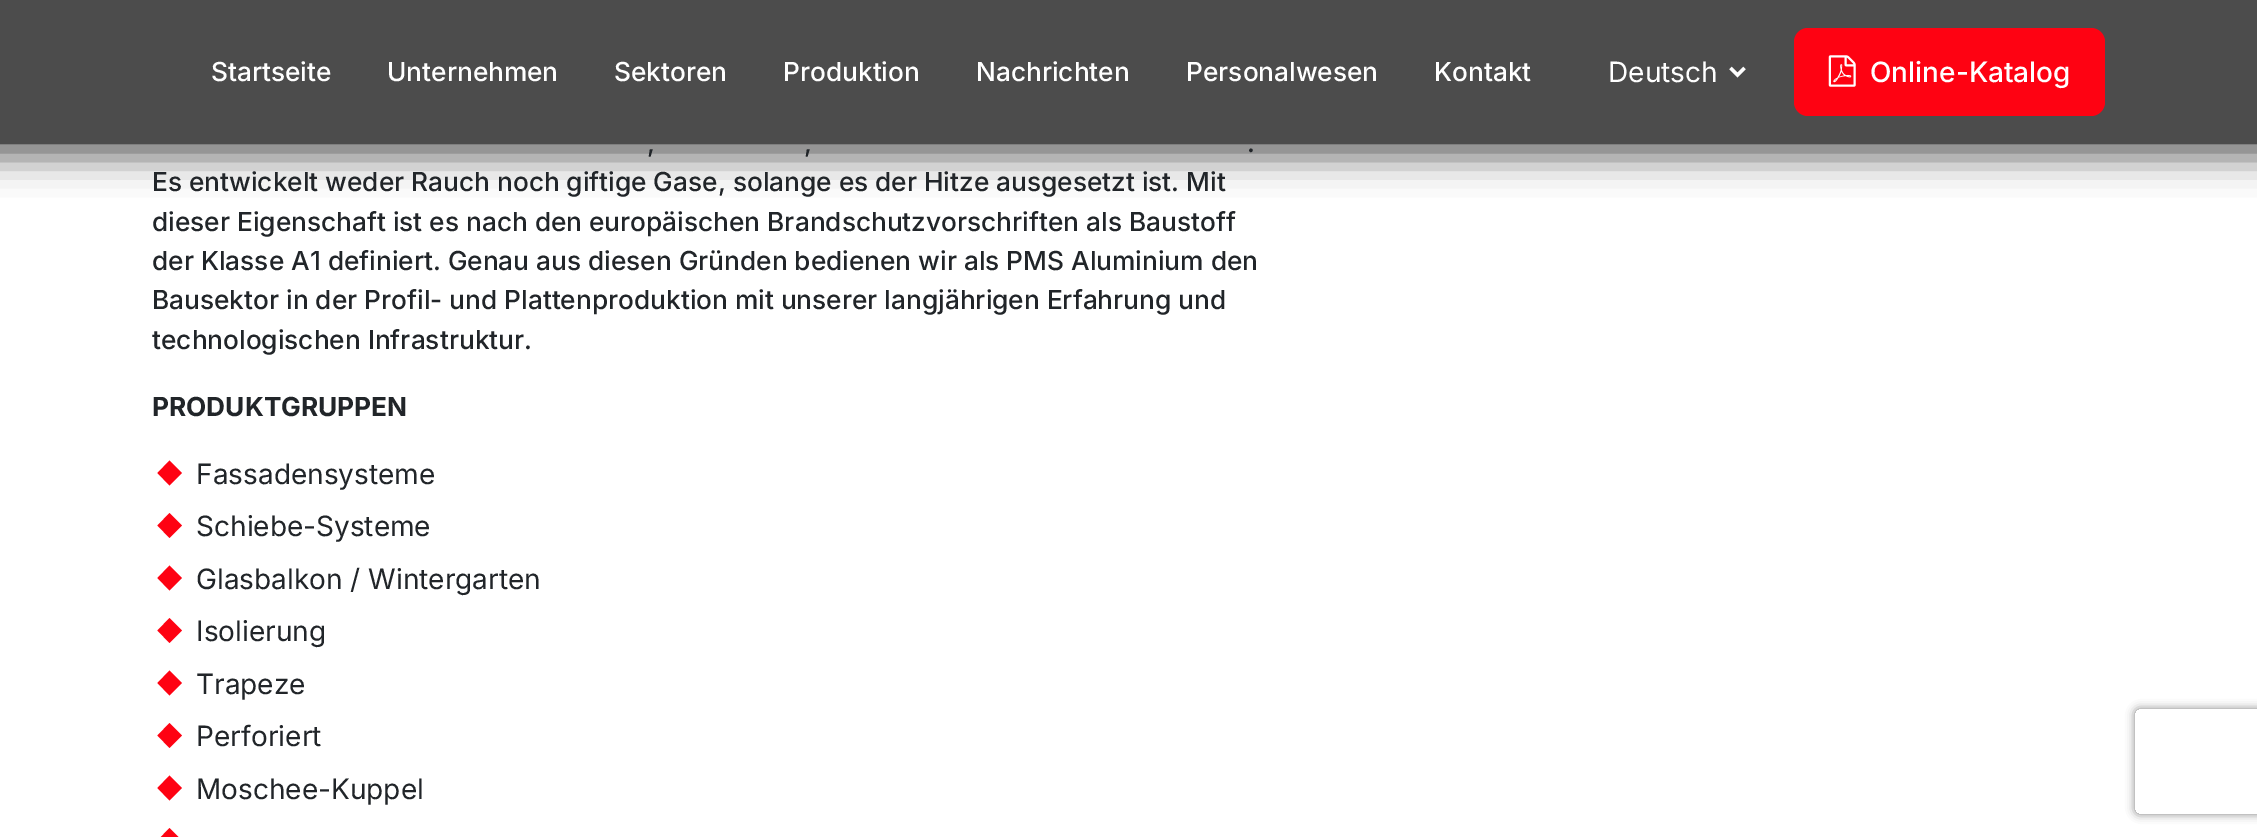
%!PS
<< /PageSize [2257 837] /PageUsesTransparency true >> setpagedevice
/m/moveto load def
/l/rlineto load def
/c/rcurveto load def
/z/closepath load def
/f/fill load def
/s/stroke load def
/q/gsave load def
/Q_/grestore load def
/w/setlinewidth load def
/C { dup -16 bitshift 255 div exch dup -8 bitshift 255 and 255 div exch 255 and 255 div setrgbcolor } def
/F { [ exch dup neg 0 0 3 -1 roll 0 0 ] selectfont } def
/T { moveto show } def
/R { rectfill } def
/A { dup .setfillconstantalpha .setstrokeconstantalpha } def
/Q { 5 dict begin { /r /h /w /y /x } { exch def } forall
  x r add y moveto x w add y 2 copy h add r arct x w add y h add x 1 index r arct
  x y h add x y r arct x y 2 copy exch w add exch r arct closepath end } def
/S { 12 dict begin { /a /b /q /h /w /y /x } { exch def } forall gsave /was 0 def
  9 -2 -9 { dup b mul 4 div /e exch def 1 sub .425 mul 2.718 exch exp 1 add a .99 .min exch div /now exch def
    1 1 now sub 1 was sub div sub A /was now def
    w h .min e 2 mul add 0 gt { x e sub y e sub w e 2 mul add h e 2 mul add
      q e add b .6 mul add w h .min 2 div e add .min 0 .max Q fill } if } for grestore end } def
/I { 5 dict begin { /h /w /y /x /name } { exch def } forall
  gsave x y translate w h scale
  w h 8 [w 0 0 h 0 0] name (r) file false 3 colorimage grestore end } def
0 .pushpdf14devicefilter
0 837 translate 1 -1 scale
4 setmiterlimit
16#FFFFFF C
0 0 2257 837 R
q
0 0 m 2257 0 l 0 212 l -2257 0 l z 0 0 m 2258 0 l 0 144 l -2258 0 l z eoclip newpath
16#000000 C
-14 -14 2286 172 0 17.5 .6 S
Q_
0.7 A
16#000000 C
0 0 2257 144 R
/Inter-Medium 26.25 F
1 A
16#FFFFFF C
(Startseite) 211 81 T
(Unternehmen) 387 81 T
(Sektoren) 614 81 T
(Produktion) 783 81 T
(Nachrichten) 976 81 T
(Personalwesen) 1186 81 T
(Kontakt) 1434 81 T
3.5 w
1730.5 68 m 7 7 l 7 -7 l s
/Inter-Regular 28 F
(Deutsch) 1608 82 T
16#FE0212 C
1794 28 311 88 14 Q f
(1.rgb) 1828 55 28 32 I
/Inter-Medium 28 F
16#FFFFFF C
(Online-Katalog) 1870 82 T
/Inter-Medium 26.25 F
16#212529 C
(,) 647 152 T
(,) 804 152 T
(.) 1247 152 T
(Es entwickelt weder Rauch noch giftige Gase, solange es der Hitze ausgesetzt ist. Mit) 152 191 T
(dieser Eigenschaft ist es nach den europäischen Brandschutzvorschriften als Baustoff) 152 231 T
(der Klasse A1 definiert. Genau aus diesen Gründen bedienen wir als PMS Aluminium den) 152 270 T
(Bausektor in der Profil- und Plattenproduktion mit unserer langjährigen Erfahrung und) 152 309 T
(technologischen Infrastruktur.) 152 349 T
/Inter-Bold 26.25 F
(PRODUKTGRUPPEN) 152 416 T
16#FE0212 C
169.5 460.5 m 12.5 12.5 l -12.5 12.5 l -12 -12.5 l z f
/Inter-Regular 28 F
16#212529 C
(Fassadensysteme) 196 484 T
16#FE0212 C
169.5 513 m 12.5 12.5 l -12.5 12.5 l -12 -12.5 l z f
16#212529 C
(Schiebe-Systeme) 196 536 T
16#FE0212 C
169.5 565.5 m 12.5 12.5 l -12.5 12.5 l -12 -12.5 l z f
16#212529 C
(Glasbalkon / Wintergarten) 196 589 T
16#FE0212 C
169.5 618 m 12.5 12.5 l -12.5 12.5 l -12 -12.5 l z f
16#212529 C
(Isolierung) 196 641 T
16#FE0212 C
169.5 670.5 m 12.5 12.5 l -12.5 12.5 l -12 -12.5 l z f
16#212529 C
(Trapeze) 196 694 T
16#FE0212 C
169.5 723 m 12.5 12.5 l -12.5 12.5 l -12 -12.5 l z f
16#212529 C
(Perforiert) 196 746 T
16#FE0212 C
169.5 775.5 m 12.5 12.5 l -12.5 12.5 l -12 -12.5 l z 169.5 828 m 12.5 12.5 l -12.5 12.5 l -12 -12.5 l z f
16#212529 C
(Moschee-Kuppel) 196 799 T
q
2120 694 m 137 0 l 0 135 l -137 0 l z 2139 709 m 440 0 l 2 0 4 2 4 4 c 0 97 l 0 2 -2 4 -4 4 c -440 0 l -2 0 -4 -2 -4 -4 c 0 -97 l 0 -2 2 -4 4 -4 c z eoclip newpath
16#808080 C
2135 709 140 105 4 4.5 1 S
Q_
.poppdf14devicefilter showpage
